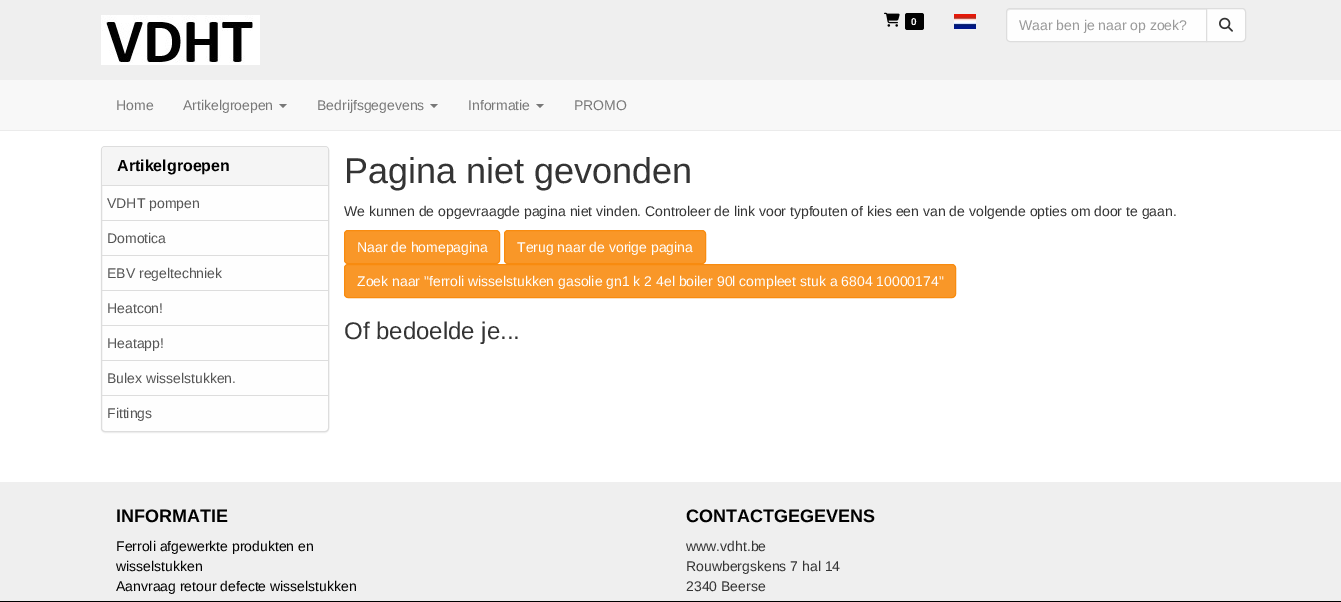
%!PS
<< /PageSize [1341 602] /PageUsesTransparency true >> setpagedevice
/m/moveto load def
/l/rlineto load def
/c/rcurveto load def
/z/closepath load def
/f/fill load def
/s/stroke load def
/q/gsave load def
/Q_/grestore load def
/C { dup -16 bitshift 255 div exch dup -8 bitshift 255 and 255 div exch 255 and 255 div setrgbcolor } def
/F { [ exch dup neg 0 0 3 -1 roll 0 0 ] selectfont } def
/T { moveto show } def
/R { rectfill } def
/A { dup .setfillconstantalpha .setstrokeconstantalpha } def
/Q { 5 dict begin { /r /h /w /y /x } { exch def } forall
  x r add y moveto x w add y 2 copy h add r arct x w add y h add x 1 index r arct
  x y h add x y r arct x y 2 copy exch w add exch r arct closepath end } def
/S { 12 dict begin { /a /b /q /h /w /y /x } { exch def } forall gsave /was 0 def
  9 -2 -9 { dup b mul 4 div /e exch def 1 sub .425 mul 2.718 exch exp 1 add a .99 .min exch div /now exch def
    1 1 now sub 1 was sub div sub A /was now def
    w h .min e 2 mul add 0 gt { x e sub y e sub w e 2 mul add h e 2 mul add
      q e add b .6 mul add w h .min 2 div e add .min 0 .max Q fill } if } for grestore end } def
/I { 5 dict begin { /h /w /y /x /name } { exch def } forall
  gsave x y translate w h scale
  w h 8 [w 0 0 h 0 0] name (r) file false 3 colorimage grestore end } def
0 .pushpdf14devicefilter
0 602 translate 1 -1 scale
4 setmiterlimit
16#FFFFFF C
0 0 1341 602 R
16#EFEFEF C
0 0 1341 80 R
(1.rgb) 101 15 159 50 I
(2.rgb) 884 12 16 15 I
16#010101 C
905 13 19 17 2.5 Q f
/LiberationSans-Bold 10 F
16#FEFEFE C
(0) 911 25 T
(3.rgb) 954 14 22 15 I
1010 8 m 197 0 l 0 34 l -197 0 l -2 0 -4 -2 -4 -4 c 0 -26 l 0 -2 2 -4 4 -4 c z f
16#EBEBEB C
1010 10 m 196 0 l 0 -1 l -196 0 l -2 0 -3 2 -3 4 c 0 -2 1 -3 3 -3 c z f
16#DDDDDD C
1010 8.5 m 196.5 0 l 0 33 l -196.5 0 l -2 0 -3.5 -1.5 -3.5 -3.5 c 0 -26 l 0 -2 1.5 -3.5 3.5 -3.5 c z s
/LiberationSans-Regular 14 F
16#999999 C
(Waar ben je naar op zoek?) 1019 30 T
16#FEFEFE C
1206.5 8.5 m 35.5 0 l 2 0 3.5 1.5 3.5 3.5 c 0 26 l 0 2 -1.5 3.5 -3.5 3.5 c -35.5 0 l z q f Q_
16#DDDDDD C
s
(4.rgb) 1219 17 14 15 I
16#F8F8F8 C
0 80 1341 50 R
16#EBEBEB C
0 130 1341 1 R
16#787878 C
(Home) 116 110 T
(Artikelgroepen) 183 110 T
279 104 m 8 0 l -4 4 l z f
(Bedrijfsgegevens) 317 110 T
430 104 m 8 0 l -4 4 l z f
(Informatie) 468 110 T
536 104 m 8 0 l -4 4 l z f
(PROMO) 574 110 T
16#000000 C
101 147 228 286 4 .5 .05 S
16#FEFEFE C
101.5 146.5 227 285 3.5 Q q f Q_
16#DDDDDD C
s
16#F5F5F5 C
105 147 m 220 0 l 1.5 0 3 1.5 3 3 c 0 36 l -226 0 l 0 -36 l 0 -1.5 1.5 -3 3 -3 c z f
16#DDDDDD C
102 185 226 1 R
/LiberationSans-Bold 16 F
16#010101 C
(Artikelgroepen) 117 171 T
/LiberationSans-Regular 14 F
16#555555 C
(VDHT pompen) 107 208 T
16#DDDDDD C
102 220 226 1 R
16#555555 C
(Domotica) 107 243 T
16#DDDDDD C
102 255 226 1 R
16#555555 C
(EBV regeltechniek) 107 278 T
16#DDDDDD C
102 290 226 1 R
16#555555 C
(Heatcon!) 107 313 T
16#DDDDDD C
102 325 226 1 R
16#555555 C
(Heatapp!) 107 348 T
16#DDDDDD C
102 360 226 1 R
16#555555 C
(Bulex wisselstukken.) 107 383 T
16#DDDDDD C
102 395 226 1 R
16#555555 C
(Fittings) 107 418 T
/LiberationSans-Regular 36 F
16#343434 C
(Pagina niet gevonden) 344 183 T
/LiberationSans-Regular 14 F
(We kunnen de opgevraagde pagina niet vinden. Controleer de link voor typfouten of kies een van de volgende opties om door te gaan.) 344 216 T
16#F99728 C
344.5 230.5 155 33 3.5 Q q f Q_
16#F88B0F C
s
16#FEFEFE C
(Naar de homepagina) 357 252 T
16#F99728 C
504.5 230.5 201 33 3.5 Q q f Q_
16#F88B0F C
s
16#FEFEFE C
(Terug naar de vorige pagina) 517 252 T
16#F99728 C
344.5 264.5 611 33 3.5 Q q f Q_
16#F88B0F C
s
16#FEFEFE C
(Zoek naar "ferroli wisselstukken gasolie gn1 k 2 4el boiler 90l compleet stuk a 6804 10000174") 357 286 T
/LiberationSans-Regular 24 F
16#343434 C
(Of bedoelde je...) 344 339 T
16#EFEFEF C
0 482 1341 119 R
/LiberationSans-Bold 18 F
16#010101 C
(INFORMATIE) 116 522 T
/LiberationSans-Regular 14 F
(Ferroli afgewerkte produkten en) 116 551 T
(wisselstukken) 116 571 T
(Aanvraag retour defecte wisselstukken) 116 591 T
/LiberationSans-Bold 18 F
(CONTACTGEGEVENS) 686 522 T
/LiberationSans-Regular 14 F
16#343434 C
(www.vdht.be) 686 551 T
(Rouwbergskens 7 hal 14) 686 571 T
(2340 Beerse) 686 591 T
16#000000 C
0 601 1341 1 R
.poppdf14devicefilter showpage
